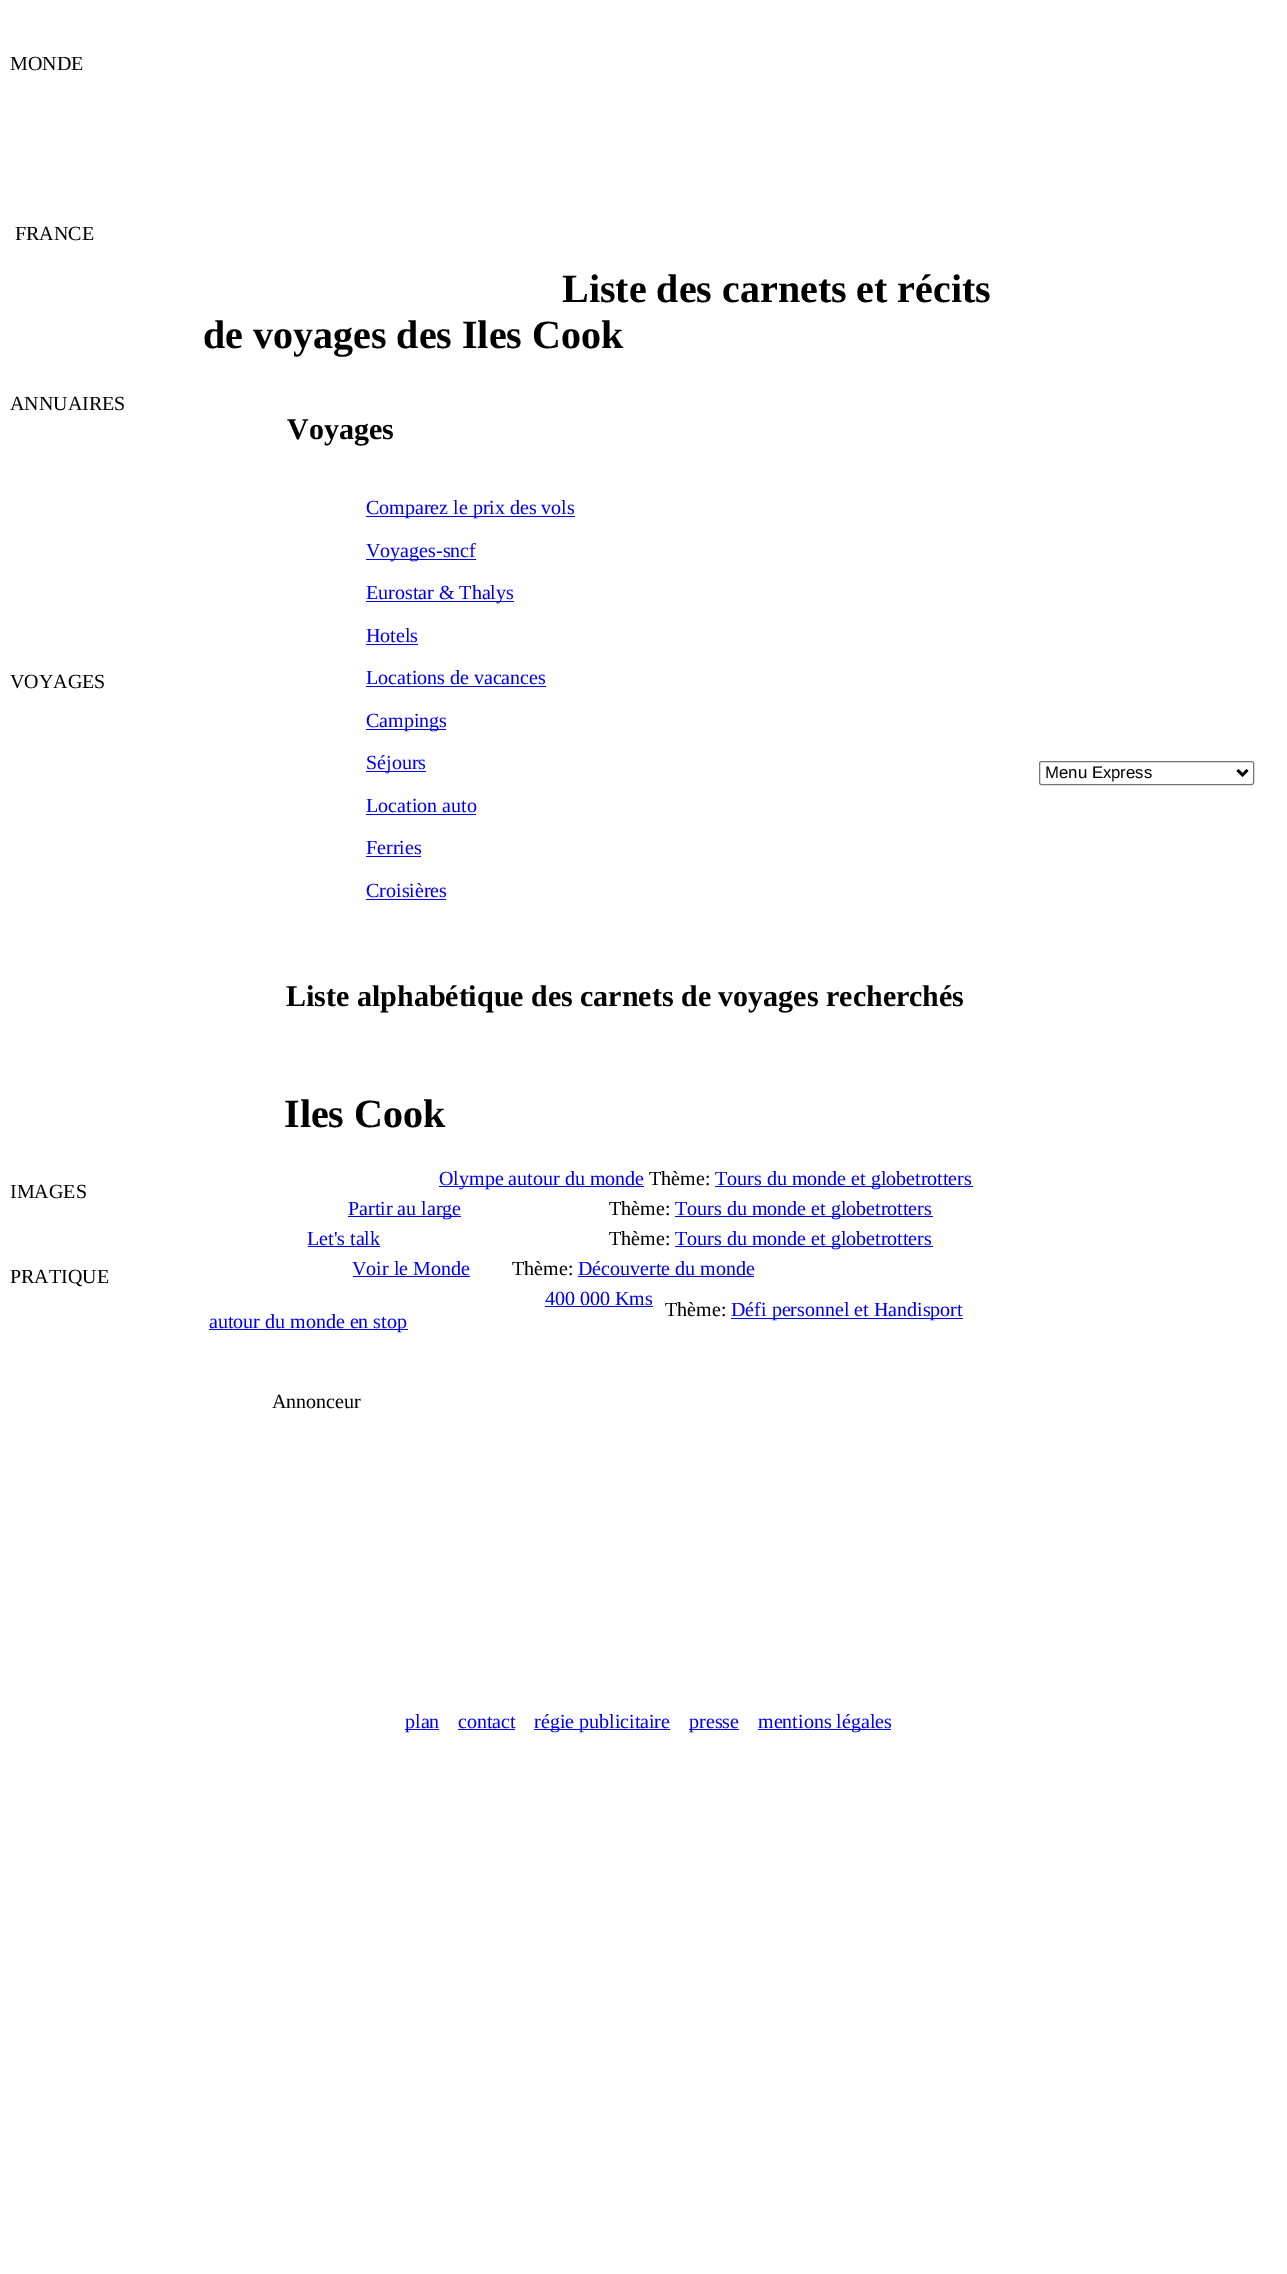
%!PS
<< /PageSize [1287 2274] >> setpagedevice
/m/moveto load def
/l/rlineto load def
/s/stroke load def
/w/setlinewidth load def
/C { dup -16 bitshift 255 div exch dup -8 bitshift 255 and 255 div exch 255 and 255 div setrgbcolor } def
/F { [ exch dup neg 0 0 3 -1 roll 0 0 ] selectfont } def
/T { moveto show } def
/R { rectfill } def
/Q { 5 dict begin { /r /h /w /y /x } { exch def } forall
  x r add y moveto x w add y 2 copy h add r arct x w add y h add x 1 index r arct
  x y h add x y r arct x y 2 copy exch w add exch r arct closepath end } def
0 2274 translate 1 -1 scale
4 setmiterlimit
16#FFFFFF C
0 0 1287 2274 R
/LiberationSerif-Regular 20 F
16#000000 C
(MONDE) 10 70 T
(FRANCE) 15 240 T
(ANNUAIRES) 10 410 T
(VOYAGES) 10 688 T
(IMAGES) 10 1198 T
(PRATIQUE) 10 1283 T
/LiberationSerif-Bold 40 F
(Liste des carnets et récits) 562 302 T
(de voyages des Iles Cook) 203 348 T
/LiberationSerif-Bold 30 F
(Voyages) 287 439 T
16#0000EE C
366 516 209 1 R
/LiberationSerif-Regular 20 F
(Comparez le prix des vols) 366 514 T
366 559 110 1 R
(Voyages-sncf) 366 557 T
366 601 148 1 R
(Eurostar & Thalys) 366 599 T
(Hotels) 366 642 T
366 644 52 1 R
(Locations de vacances) 366 684 T
366 686 180 1 R
366 729 80 1 R
(Campings) 366 727 T
366 771 60 1 R
(Séjours) 366 769 T
(Location auto) 366 812 T
366 814 110 1 R
(Ferries) 366 854 T
366 856 55 1 R
(Croisières) 366 897 T
366 899 80 1 R
/LiberationSerif-Bold 30 F
16#000000 C
(Liste alphabétique des carnets de voyages recherchés) 286 1006 T
/LiberationSerif-Bold 40 F
(Iles Cook) 284 1127 T
16#0000EE C
439 1186 205 1 R
/LiberationSerif-Regular 20 F
(Olympe autour du monde) 439 1185 T
16#000000 C
(Thème:) 649 1185 T
16#0000EE C
715 1186 258 1 R
(Tours du monde et globetrotters) 715 1185 T
348 1216 113 1 R
(Partir au large) 348 1215 T
16#000000 C
(Thème:) 609 1215 T
16#0000EE C
675 1216 258 1 R
(Tours du monde et globetrotters) 675 1215 T
(Let's talk) 307 1245 T
308 1246 72 1 R
16#000000 C
(Thème:) 609 1245 T
16#0000EE C
675 1246 258 1 R
(Tours du monde et globetrotters) 675 1245 T
(Voir le Monde) 352 1275 T
353 1276 117 1 R
16#000000 C
(Thème:) 512 1275 T
16#0000EE C
(Découverte du monde) 578 1275 T
578 1276 176 1 R
(400 000 Kms) 545 1305 T
545 1306 108 1 R
209 1329 199 1 R
(autour du monde en stop) 209 1328 T
16#000000 C
(Thème:) 665 1316 T
16#0000EE C
731 1318 232 1 R
(Défi personnel et Handisport) 731 1316 T
16#000000 C
(Annonceur) 272 1408 T
16#767676 C
1039.5 761.5 214 23 2 Q s
16#000000 C
2.5 w
1237.5 770 m 5 5 l 5 -5 l s
/LiberationSans-Regular 16.75 F
(Menu Express) 1045 778 T
16#0000EE C
405 1729 34 1 R
/LiberationSerif-Regular 20 F
(plan) 405 1728 T
(contact) 458 1728 T
458 1729 57 1 R
534 1729 136 1 R
(régie publicitaire) 534 1728 T
689 1729 50 1 R
(presse) 689 1728 T
758 1729 133 1 R
(mentions légales) 758 1728 T
showpage
